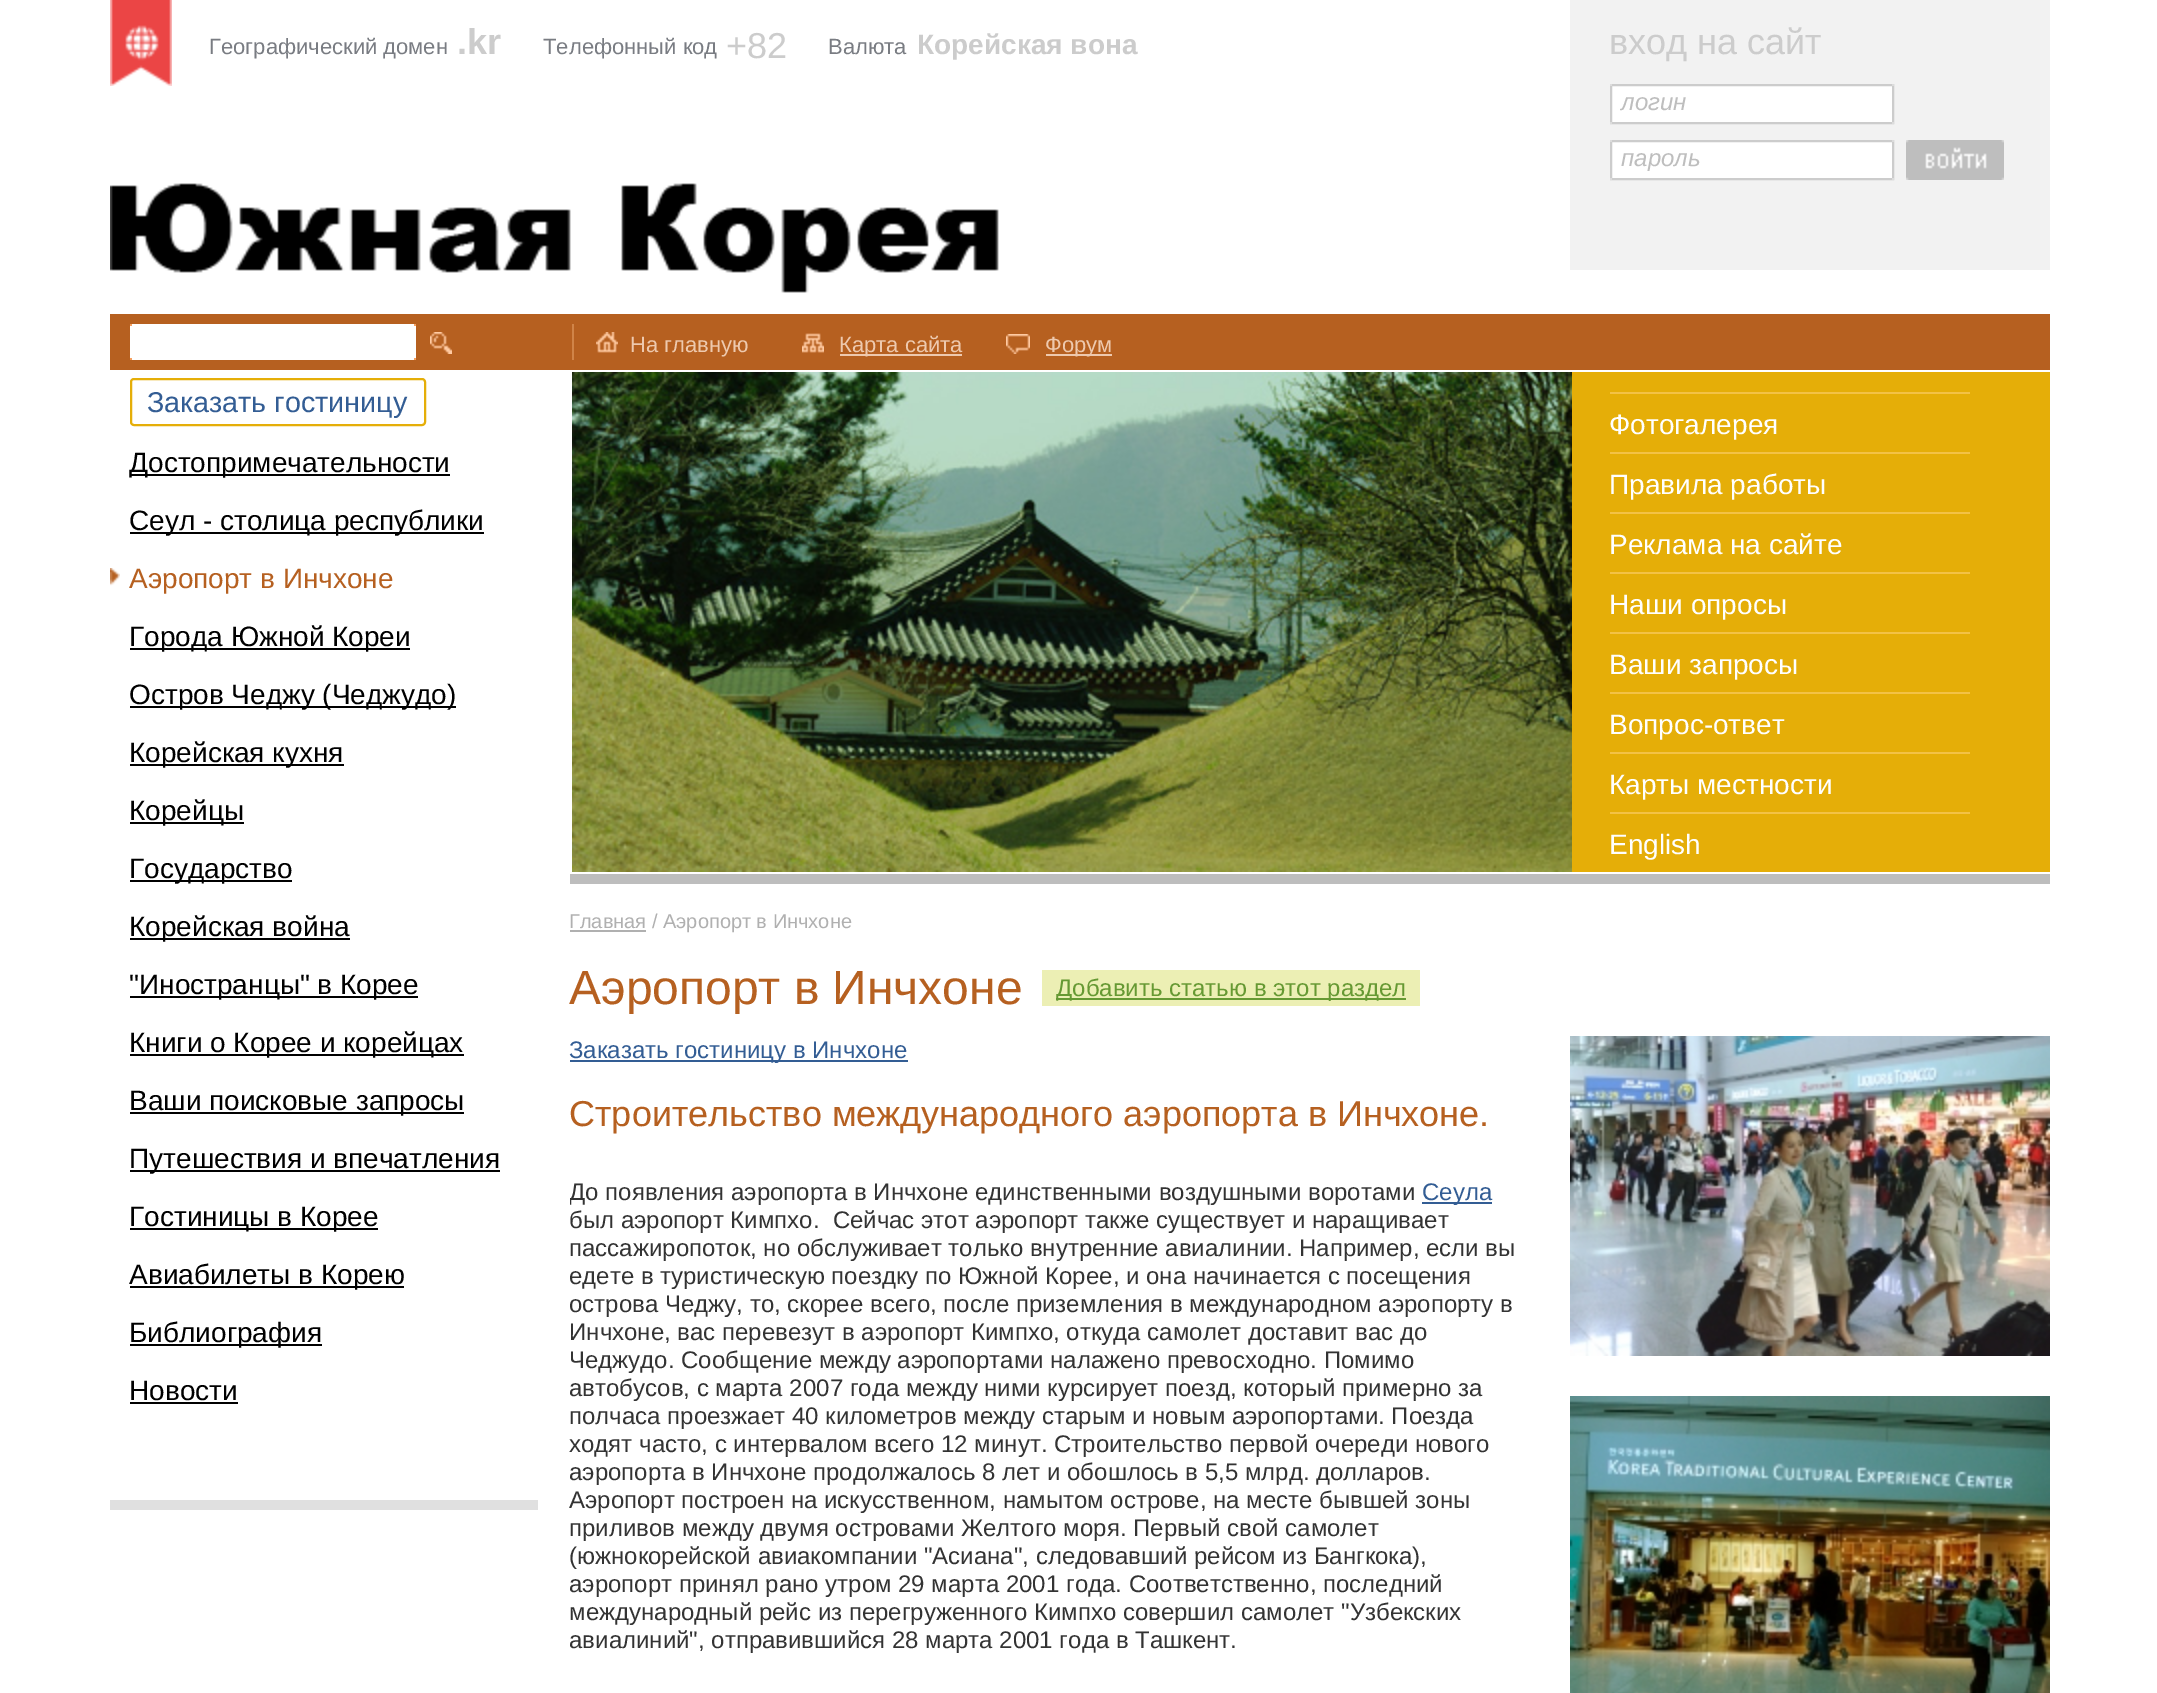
%!PS
<< /PageSize [2157 1693] >> setpagedevice
/m/moveto load def
/l/rlineto load def
/z/closepath load def
/f/fill load def
/s/stroke load def
/q/gsave load def
/Q_/grestore load def
/w/setlinewidth load def
/C { dup -16 bitshift 255 div exch dup -8 bitshift 255 and 255 div exch 255 and 255 div setrgbcolor } def
/F { [ exch dup neg 0 0 3 -1 roll 0 0 ] selectfont } def
/T { moveto show } def
/R { rectfill } def
/Q { 5 dict begin { /r /h /w /y /x } { exch def } forall
  x r add y moveto x w add y 2 copy h add r arct x w add y h add x 1 index r arct
  x y h add x y r arct x y 2 copy exch w add exch r arct closepath end } def
/I { 5 dict begin { /h /w /y /x /name } { exch def } forall
  gsave x y translate w h scale
  w h 8 [w 0 0 h 0 0] name (r) file false 3 colorimage grestore end } def
0 1693 translate 1 -1 scale
4 setmiterlimit
16#FFFFFF C
0 0 2157 1693 R
(1.rgb) 110 0 62 86 I
/LiberationSans-Regular 22 F
16#797C82 C
(Географический домен) 209 54 T
/LiberationSans-Bold 36 F
16#CCCCCC C
(.kr) 457 54 T
/LiberationSans-Regular 22 F
16#797C82 C
(Телефонный код) 543 54 T
/LiberationSans-Regular 36 F
16#CCCCCC C
(+82) 726 58 T
/LiberationSans-Regular 22 F
16#797C82 C
(Валюта) 828 54 T
/LiberationSans-Bold 28 F
16#CCCCCC C
(Корейская вона) 917 54 T
16#F2F2F2 C
1570 0 480 270 R
/LiberationSans-Regular 36 F
16#CCCCCC C
(вход на сайт) 1609 54 T
16#FFFFFF C
1611 85 m 282 0 l 0 38 l -282 0 l z q f Q_
16#CCCCCC C
2 w
s
16#DCDCDC C
1610 84 2 2 R
1892 84 2 2 R
/LiberationSans-Italic 24 F
16#BEBEBE C
(логин) 1621 110 T
16#DCDCDC C
1610 122 2 2 R
1892 122 2 2 R
16#FFFFFF C
1611 141 m 282 0 l 0 38 l -282 0 l z q f Q_
16#CCCCCC C
s
16#DCDCDC C
1610 140 2 2 R
1892 140 2 2 R
16#BEBEBE C
(пароль) 1621 166 T
16#DCDCDC C
1610 178 2 2 R
1892 178 2 2 R
(2.rgb) 1906 140 98 40 I
(3.rgb) 110 167 889 126 I
16#B66020 C
110 314 1940 56 R
16#D08448 C
572 324 2 36 R
16#FFFFFF C
130 324 286 36 R
16#F6A060 C
130 324 2 2 R
414 324 2 2 R
130 358 2 2 R
414 358 2 2 R
(4.rgb) 430 332 22 22 I
(5.rgb) 596 332 22 21 I
/LiberationSans-Regular 22 F
16#EEC9AE C
(На главную) 630 352 T
(6.rgb) 802 333 22 20 I
840 354 122 2 R
(Карта сайта) 839 352 T
(7.rgb) 1006 334 24 20 I
1046 354 66 2 R
(Форум) 1045 352 T
16#E5AE08 C
131 379 294 46 3 Q s
/LiberationSans-Regular 28.75 F
16#335D94 C
(Заказать гостиницу) 147 412 T
16#000000 C
130 474 320 2 R
/LiberationSans-Regular 28 F
(Достопримечательности) 129 472 T
130 532 354 2 R
(Сеул - столица республики) 129 530 T
(8.rgb) 110 568 10 18 I
16#B66020 C
(Аэропорт в Инчхоне) 129 588 T
16#000000 C
130 648 280 2 R
(Города Южной Кореи) 129 646 T
130 706 326 2 R
(Остров Чеджу \(Чеджудо\)) 129 704 T
130 764 214 2 R
(Корейская кухня) 129 762 T
130 822 114 2 R
(Корейцы) 129 820 T
130 880 162 2 R
(Государство) 129 878 T
130 938 220 2 R
(Корейская война) 129 936 T
130 996 288 2 R
("Иностранцы" в Корее) 129 994 T
130 1054 334 2 R
(Книги о Корее и корейцах) 129 1052 T
130 1112 334 2 R
(Ваши поисковые запросы) 129 1110 T
130 1170 370 2 R
(Путешествия и впечатления) 129 1168 T
130 1228 248 2 R
(Гостиницы в Корее) 129 1226 T
130 1286 274 2 R
(Авиабилеты в Корею) 129 1284 T
130 1344 192 2 R
(Библиография) 129 1342 T
(Новости) 129 1400 T
130 1402 108 2 R
16#E0E0E0 C
110 1500 428 10 R
(9.rgb) 572 372 1000 500 I
16#E5AE08 C
1572 372 478 500 R
16#F3C246 C
1610 392 360 2 R
16#FFFFFF C
(Фотогалерея) 1609 434 T
16#F3C246 C
1610 452 360 2 R
16#FFFFFF C
(Правила работы) 1609 494 T
16#F3C246 C
1610 512 360 2 R
16#FFFFFF C
(Реклама на сайте) 1609 554 T
16#F3C246 C
1610 572 360 2 R
16#FFFFFF C
(Наши опросы) 1609 614 T
16#F3C246 C
1610 632 360 2 R
16#FFFFFF C
(Ваши запросы) 1609 674 T
16#F3C246 C
1610 692 360 2 R
16#FFFFFF C
(Вопрос-ответ) 1609 734 T
16#F3C246 C
1610 752 360 2 R
16#FFFFFF C
(Карты местности) 1609 794 T
16#F3C246 C
1610 812 360 2 R
16#FFFFFF C
(English) 1609 854 T
16#BDBDBD C
570 874 1480 10 R
16#B0B0B0 C
570 930 76 2 R
/LiberationSans-Regular 20 F
(Главная / Аэропорт в Инчхоне) 569 928 T
/LiberationSans-Regular 48 F
16#B66020 C
(Аэропорт в Инчхоне) 569 1004 T
16#ECEFB4 C
1042 970 378 36 R
16#669933 C
1056 998 350 2 R
/LiberationSans-Regular 24 F
(Добавить статью в этот раздел) 1056 996 T
16#335D94 C
570 1060 338 2 R
(Заказать гостиницу в Инчхоне) 569 1058 T
/LiberationSans-Regular 36 F
16#B66020 C
(Строительство международного аэропорта в Инчхоне.) 569 1126 T
q
570 1036 960 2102 rectclip
/LiberationSans-Regular 24 F
16#333333 C
(До появления аэропорта в Инчхоне единственными воздушными воротами) 569 1200 T
Q_
16#335D94 C
1422 1202 70 2 R
/LiberationSans-Regular 24 F
(Сеула) 1422 1200 T
16#333333 C
(был аэропорт Кимпхо.  Сейчас этот аэропорт также существует и наращивает) 569 1228 T
(пассажиропоток, но обслуживает только внутренние авиалинии. Например, если вы) 569 1256 T
(едете в туристическую поездку по Южной Корее, и она начинается с посещения) 569 1284 T
(острова Чеджу, то, скорее всего, после приземления в международном аэропорту в) 569 1312 T
(Инчхоне, вас перевезут в аэропорт Кимпхо, откуда самолет доставит вас до) 569 1340 T
(Чеджудо. Сообщение между аэропортами налажено превосходно. Помимо) 569 1368 T
(автобусов, с марта 2007 года между ними курсирует поезд, который примерно за) 569 1396 T
(полчаса проезжает 40 километров между старым и новым аэропортами. Поезда) 569 1424 T
(ходят часто, с интервалом всего 12 минут. Строительство первой очереди нового) 569 1452 T
(аэропорта в Инчхоне продолжалось 8 лет и обошлось в 5,5 млрд. долларов.) 569 1480 T
(Аэропорт построен на искусственном, намытом острове, на месте бывшей зоны) 569 1508 T
(приливов между двумя островами Желтого моря. Первый свой самолет) 569 1536 T
(\(южнокорейской авиакомпании "Асиана", следовавший рейсом из Бангкока\),) 569 1564 T
(аэропорт принял рано утром 29 марта 2001 года. Соответственно, последний) 569 1592 T
(международный рейс из перегруженного Кимпхо совершил самолет "Узбекских) 569 1620 T
(авиалиний", отправившийся 28 марта 2001 года в Ташкент.) 569 1648 T
(10.rgb) 1570 1036 480 320 I
(11.rgb) 1570 1396 480 297 I
showpage
